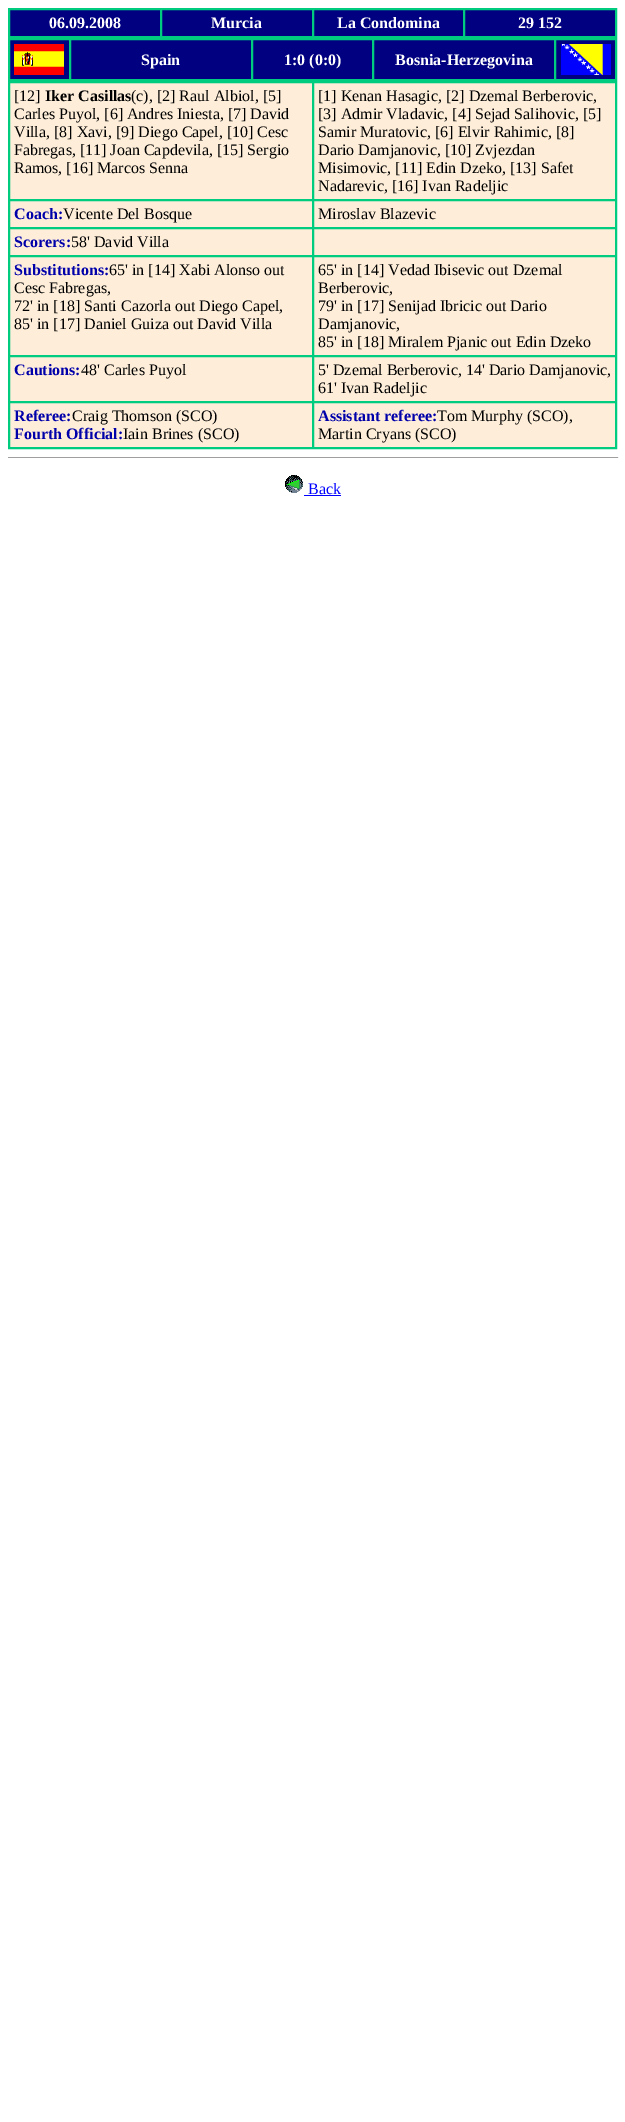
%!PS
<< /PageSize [625 2122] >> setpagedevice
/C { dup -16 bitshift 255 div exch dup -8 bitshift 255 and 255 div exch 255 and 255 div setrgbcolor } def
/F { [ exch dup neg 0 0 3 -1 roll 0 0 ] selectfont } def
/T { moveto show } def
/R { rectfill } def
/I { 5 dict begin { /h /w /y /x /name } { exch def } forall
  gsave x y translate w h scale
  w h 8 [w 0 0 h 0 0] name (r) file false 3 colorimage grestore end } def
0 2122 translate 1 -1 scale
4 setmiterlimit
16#FFFFFF C
0 0 625 2122 R
16#000080 C
10 10 605 26 R
16#00CC80 C
8.5 8.5 608 29 rectstroke
9.5 9.5 151 27 rectstroke
/LiberationSerif-Bold 16 F
16#FFFFFF C
(06.09.2008) 49 28 T
16#00CC80 C
161.5 9.5 151 27 rectstroke
16#FFFFFF C
(Murcia) 211 28 T
16#00CC80 C
313.5 9.5 150 27 rectstroke
16#FFFFFF C
(La Condomina) 337 28 T
16#00CC80 C
464.5 9.5 151 27 rectstroke
16#FFFFFF C
(29 152) 518 28 T
16#000080 C
10 40 605 39 R
16#00CC80 C
8.5 38.5 608 42 rectstroke
9.5 39.5 60 40 rectstroke
(1.rgb) 14 44 50 31 I
70.5 39.5 181 40 rectstroke
16#FFFFFF C
(Spain) 141 65 T
16#00CC80 C
252.5 39.5 120 40 rectstroke
16#FFFFFF C
(1:0 \(0:0\)) 284 65 T
16#00CC80 C
373.5 39.5 181 40 rectstroke
16#FFFFFF C
(Bosnia-Herzegovina) 395 65 T
16#00CC80 C
555.5 39.5 60 40 rectstroke
(2.rgb) 561 44 50 31 I
16#FEEED9 C
10 83 605 364 R
16#00CC80 C
8.5 81.5 608 367 rectstroke
9.5 82.5 303 117 rectstroke
/LiberationSerif-Regular 16 F
16#000000 C
([12]) 14 101 T
/LiberationSerif-Bold 16 F
(Iker Casillas) 45 101 T
/LiberationSerif-Regular 16 F
(\(c\), [2] Raul Albiol, [5]) 131 101 T
(Carles Puyol, [6] Andres Iniesta, [7] David) 14 119 T
(Villa, [8] Xavi, [9] Diego Capel, [10] Cesc) 14 137 T
(Fabregas, [11] Joan Capdevila, [15] Sergio) 14 155 T
(Ramos, [16] Marcos Senna) 14 173 T
16#00CC80 C
313.5 82.5 302 117 rectstroke
16#000000 C
([1] Kenan Hasagic, [2] Dzemal Berberovic,) 318 101 T
([3] Admir Vladavic, [4] Sejad Salihovic, [5]) 318 119 T
(Samir Muratovic, [6] Elvir Rahimic, [8]) 318 137 T
(Dario Damjanovic, [10] Zvjezdan) 318 155 T
(Misimovic, [11] Edin Dzeko, [13] Safet) 318 173 T
(Nadarevic, [16] Ivan Radeljic) 318 191 T
16#00CC80 C
9.5 200.5 303 27 rectstroke
/LiberationSerif-Bold 16 F
16#0000AA C
(Coach:) 14 219 T
/LiberationSerif-Regular 16 F
16#000000 C
(Vicente Del Bosque) 63 219 T
16#00CC80 C
313.5 200.5 302 27 rectstroke
16#000000 C
(Miroslav Blazevic) 318 219 T
16#00CC80 C
9.5 228.5 303 27 rectstroke
/LiberationSerif-Bold 16 F
16#0000AA C
(Scorers:) 14 247 T
/LiberationSerif-Regular 16 F
16#000000 C
(58' David Villa) 71 247 T
16#00CC80 C
313.5 228.5 302 27 rectstroke
9.5 256.5 303 99 rectstroke
/LiberationSerif-Bold 16 F
16#0000AA C
(Substitutions:) 14 275 T
/LiberationSerif-Regular 16 F
16#000000 C
(65' in [14] Xabi Alonso out) 109 275 T
(Cesc Fabregas,) 14 293 T
(72' in [18] Santi Cazorla out Diego Capel,) 14 311 T
(85' in [17] Daniel Guiza out David Villa) 14 329 T
16#00CC80 C
313.5 256.5 302 99 rectstroke
16#000000 C
(65' in [14] Vedad Ibisevic out Dzemal) 318 275 T
(Berberovic,) 318 293 T
(79' in [17] Senijad Ibricic out Dario) 318 311 T
(Damjanovic,) 318 329 T
(85' in [18] Miralem Pjanic out Edin Dzeko) 318 347 T
16#00CC80 C
9.5 356.5 303 45 rectstroke
/LiberationSerif-Bold 16 F
16#0000AA C
(Cautions:) 14 375 T
/LiberationSerif-Regular 16 F
16#000000 C
(48' Carles Puyol) 81 375 T
16#00CC80 C
313.5 356.5 302 45 rectstroke
16#000000 C
(5' Dzemal Berberovic, 14' Dario Damjanovic,) 318 375 T
(61' Ivan Radeljic) 318 393 T
16#00CC80 C
9.5 402.5 303 45 rectstroke
/LiberationSerif-Bold 16 F
16#0000AA C
(Referee:) 14 421 T
/LiberationSerif-Regular 16 F
16#000000 C
(Craig Thomson \(SCO\)) 72 421 T
/LiberationSerif-Bold 16 F
16#0000AA C
(Fourth Official:) 14 439 T
/LiberationSerif-Regular 16 F
16#000000 C
(Iain Brines \(SCO\)) 123 439 T
16#00CC80 C
313.5 402.5 302 45 rectstroke
/LiberationSerif-Bold 16 F
16#0000AA C
(Assistant referee:) 318 421 T
/LiberationSerif-Regular 16 F
16#000000 C
(Tom Murphy \(SCO\),) 437 421 T
(Martin Cryans \(SCO\)) 318 439 T
16#9F9F9F C
8 457 611 1 R
16#EEEEEE C
618 457 1 1 R
(3.rgb) 285 475 18 18 I
16#0000FF C
(Back) 308 494 T
304 495 37 1 R
showpage
